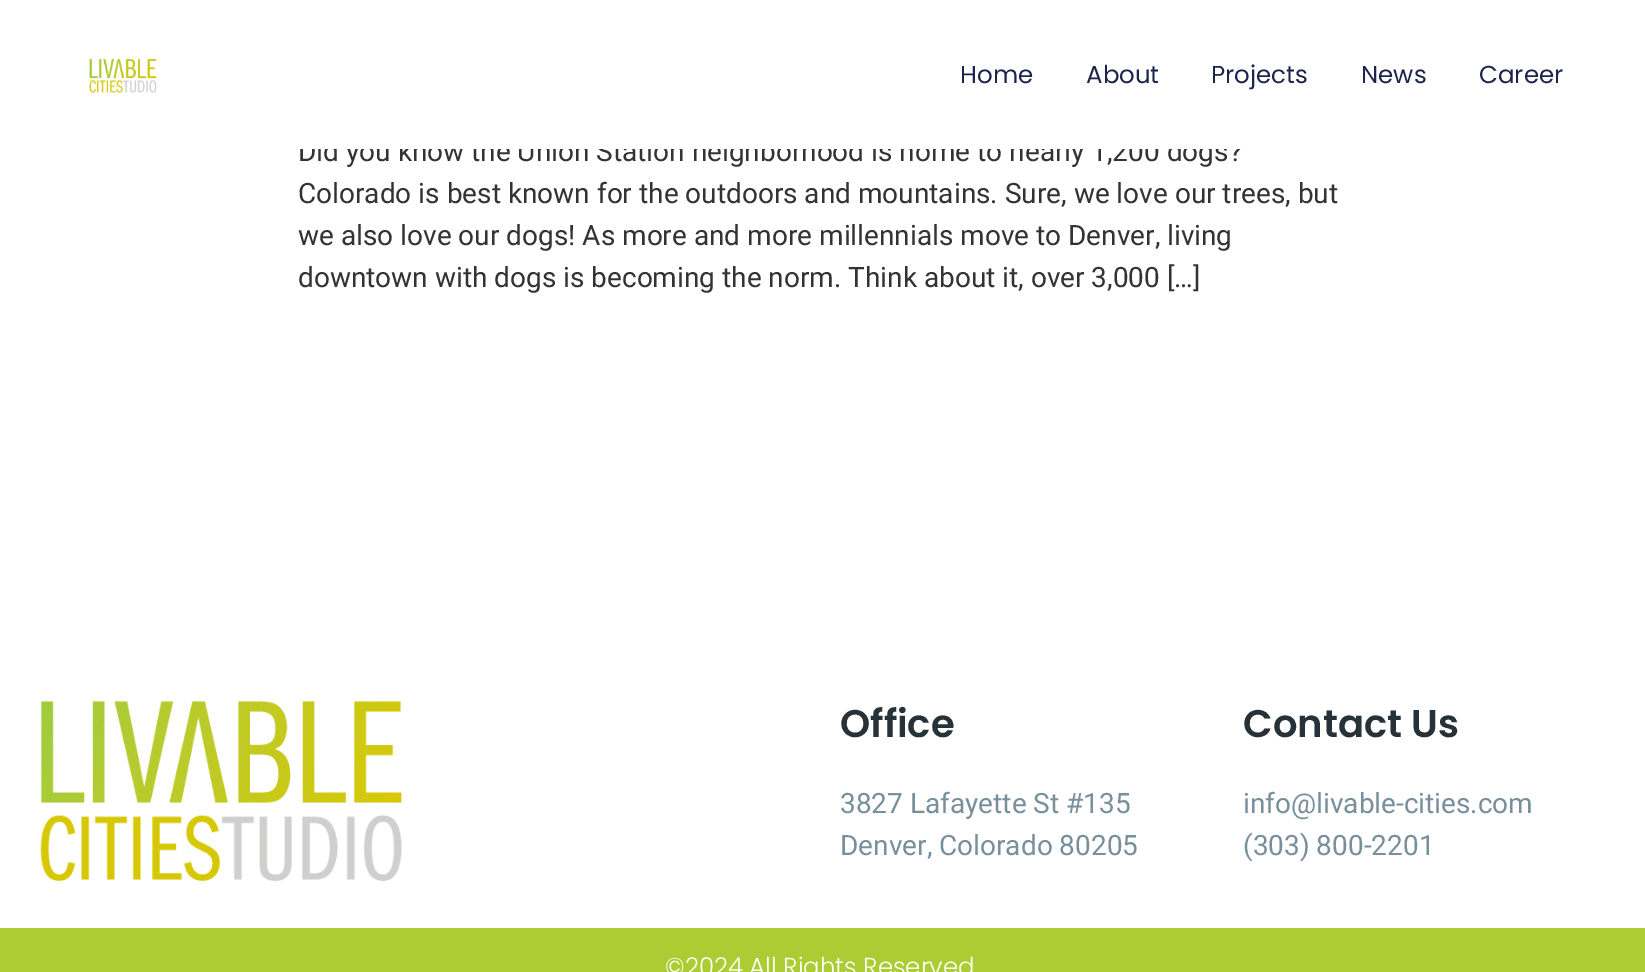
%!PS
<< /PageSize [1645 972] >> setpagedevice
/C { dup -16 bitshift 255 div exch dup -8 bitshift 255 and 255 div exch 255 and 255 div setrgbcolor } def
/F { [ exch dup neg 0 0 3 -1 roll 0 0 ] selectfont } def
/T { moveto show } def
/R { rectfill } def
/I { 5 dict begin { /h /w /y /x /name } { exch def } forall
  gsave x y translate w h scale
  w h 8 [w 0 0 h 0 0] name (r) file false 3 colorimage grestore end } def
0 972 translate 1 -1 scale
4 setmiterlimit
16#FFFFFF C
0 0 1645 972 R
/Roboto-Regular 28 F
16#333333 C
(Did you know the Union Station neighborhood is home to nearly 1,200 dogs?) 298 161 T
16#FFFFFF C
299 140 942 9 R
(1.rgb) 89 58 68 35 I
/Poppins-Regular 24.5 F
16#1C244B C
(Home) 960 83 T
(About) 1086 83 T
(Projects) 1211 83 T
(News) 1361 83 T
(Career) 1479 83 T
/Roboto-Regular 28 F
16#333333 C
(Colorado is best known for the outdoors and mountains. Sure, we love our trees, but) 298 203 T
(we also love our dogs! As more and more millennials move to Denver, living) 298 245 T
(downtown with dogs is becoming the norm. Think about it, over 3,000 […]) 298 287 T
(2.rgb) 40 700 362 181 I
/Poppins-SemiBold 38.5 F
16#263238 C
(Office) 840 737 T
/Roboto-Regular 28 F
16#78909C C
(3827 Lafayette St #135) 840 813 T
(Denver, Colorado 80205) 840 855 T
/Poppins-SemiBold 38.5 F
16#263238 C
(Contact Us) 1243 737 T
/Roboto-Regular 28 F
16#78909C C
(info@livable-cities.com) 1243 813 T
(\(303\) 800-2201) 1243 855 T
16#ACCC34 C
0 928 1645 44 R
/Poppins-Light 24.5 F
16#FFFFFF C
(©2024 All Rights Reserved) 665 975 T
showpage
